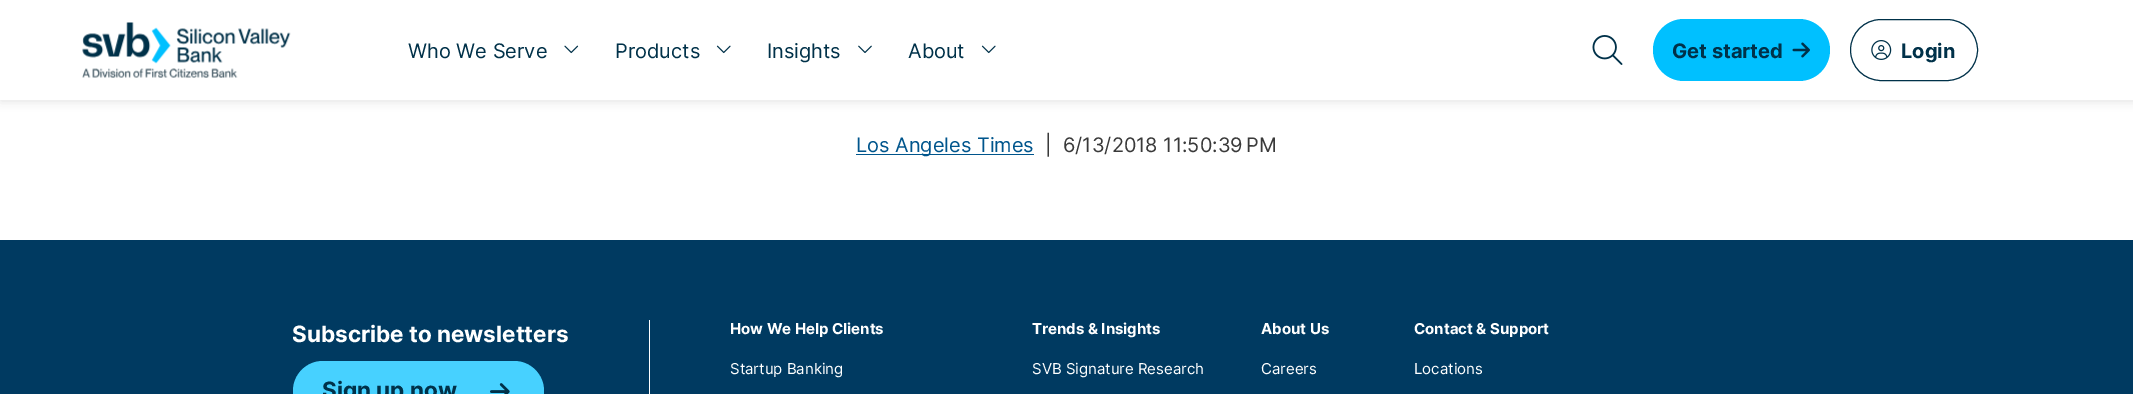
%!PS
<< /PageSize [2133 394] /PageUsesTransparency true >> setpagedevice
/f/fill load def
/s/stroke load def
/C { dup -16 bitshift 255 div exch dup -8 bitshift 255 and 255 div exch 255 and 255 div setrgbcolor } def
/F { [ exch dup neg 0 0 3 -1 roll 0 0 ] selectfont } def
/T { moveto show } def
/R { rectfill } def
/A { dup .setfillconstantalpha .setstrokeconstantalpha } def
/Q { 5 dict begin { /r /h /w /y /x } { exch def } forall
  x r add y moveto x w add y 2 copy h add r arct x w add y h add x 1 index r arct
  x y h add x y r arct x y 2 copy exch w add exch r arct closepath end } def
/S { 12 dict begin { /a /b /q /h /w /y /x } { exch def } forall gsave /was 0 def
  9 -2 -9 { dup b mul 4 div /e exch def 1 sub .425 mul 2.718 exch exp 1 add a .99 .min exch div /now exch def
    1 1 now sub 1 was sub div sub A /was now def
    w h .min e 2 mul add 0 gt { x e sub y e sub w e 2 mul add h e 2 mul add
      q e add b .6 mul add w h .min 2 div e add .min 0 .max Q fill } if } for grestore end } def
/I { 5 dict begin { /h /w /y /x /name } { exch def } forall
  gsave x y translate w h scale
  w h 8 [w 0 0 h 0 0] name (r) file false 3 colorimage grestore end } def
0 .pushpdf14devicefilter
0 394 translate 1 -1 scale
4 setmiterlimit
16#FFFFFF C
0 0 2133 394 R
16#3A3A3A C
1 1 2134 100 0 5 .15 S
16#FFFFFF C
0 0 2133 100 R
(1.rgb) 82 22 209 56 I
/Inter-Regular 20 F
16#003149 C
(Who We Serve) 408 58 T
(2.rgb) 564 45 15 9 I
(Products) 615 58 T
(3.rgb) 716 45 15 9 I
(Insights) 767 58 T
(4.rgb) 858 45 14 8 I
(About) 908 58 T
(3.rgb) 981 45 15 9 I
(5.rgb) 1592 35 31 30 I
16#00C0FF C
1653 19 177 62 31 Q f
/Inter-Bold 20 F
16#003149 C
(Get started) 1672 58 T
(6.rgb) 1792 42 18 16 I
1850.5 19.5 127 61 30.5 Q s
(7.rgb) 1871 40 21 20 I
(Login) 1901 58 T
16#00558C C
856 154 178 1 R
/Inter-Regular 20 F
(Los Angeles Times) 856 152 T
16#3A3A3A C
(|  6/13/2018 11:50:39 PM) 1045 152 T
16#003A61 C
0 240 2133 154 R
/Inter-Bold 22.5 F
16#FFFFFF C
(Subscribe to newsletters) 292 342 T
16#47D1FF C
293 361 251 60 30 Q f
16#003149 C
(Sign up now) 322 398 T
(8.rgb) 490 383 20 11 I
16#FFFFFF C
649 320 1 74 R
/Inter-Bold 15 F
(How We Help Clients) 730 334 T
/Inter-Regular 15 F
(Startup Banking) 730 374 T
/Inter-Bold 15 F
(Trends & Insights) 1032 334 T
/Inter-Regular 15 F
(SVB Signature Research) 1032 374 T
/Inter-Bold 15 F
(About Us) 1261 334 T
/Inter-Regular 15 F
(Careers) 1261 374 T
/Inter-Bold 15 F
(Contact & Support) 1414 334 T
/Inter-Regular 15 F
(Locations) 1414 374 T
.poppdf14devicefilter showpage
